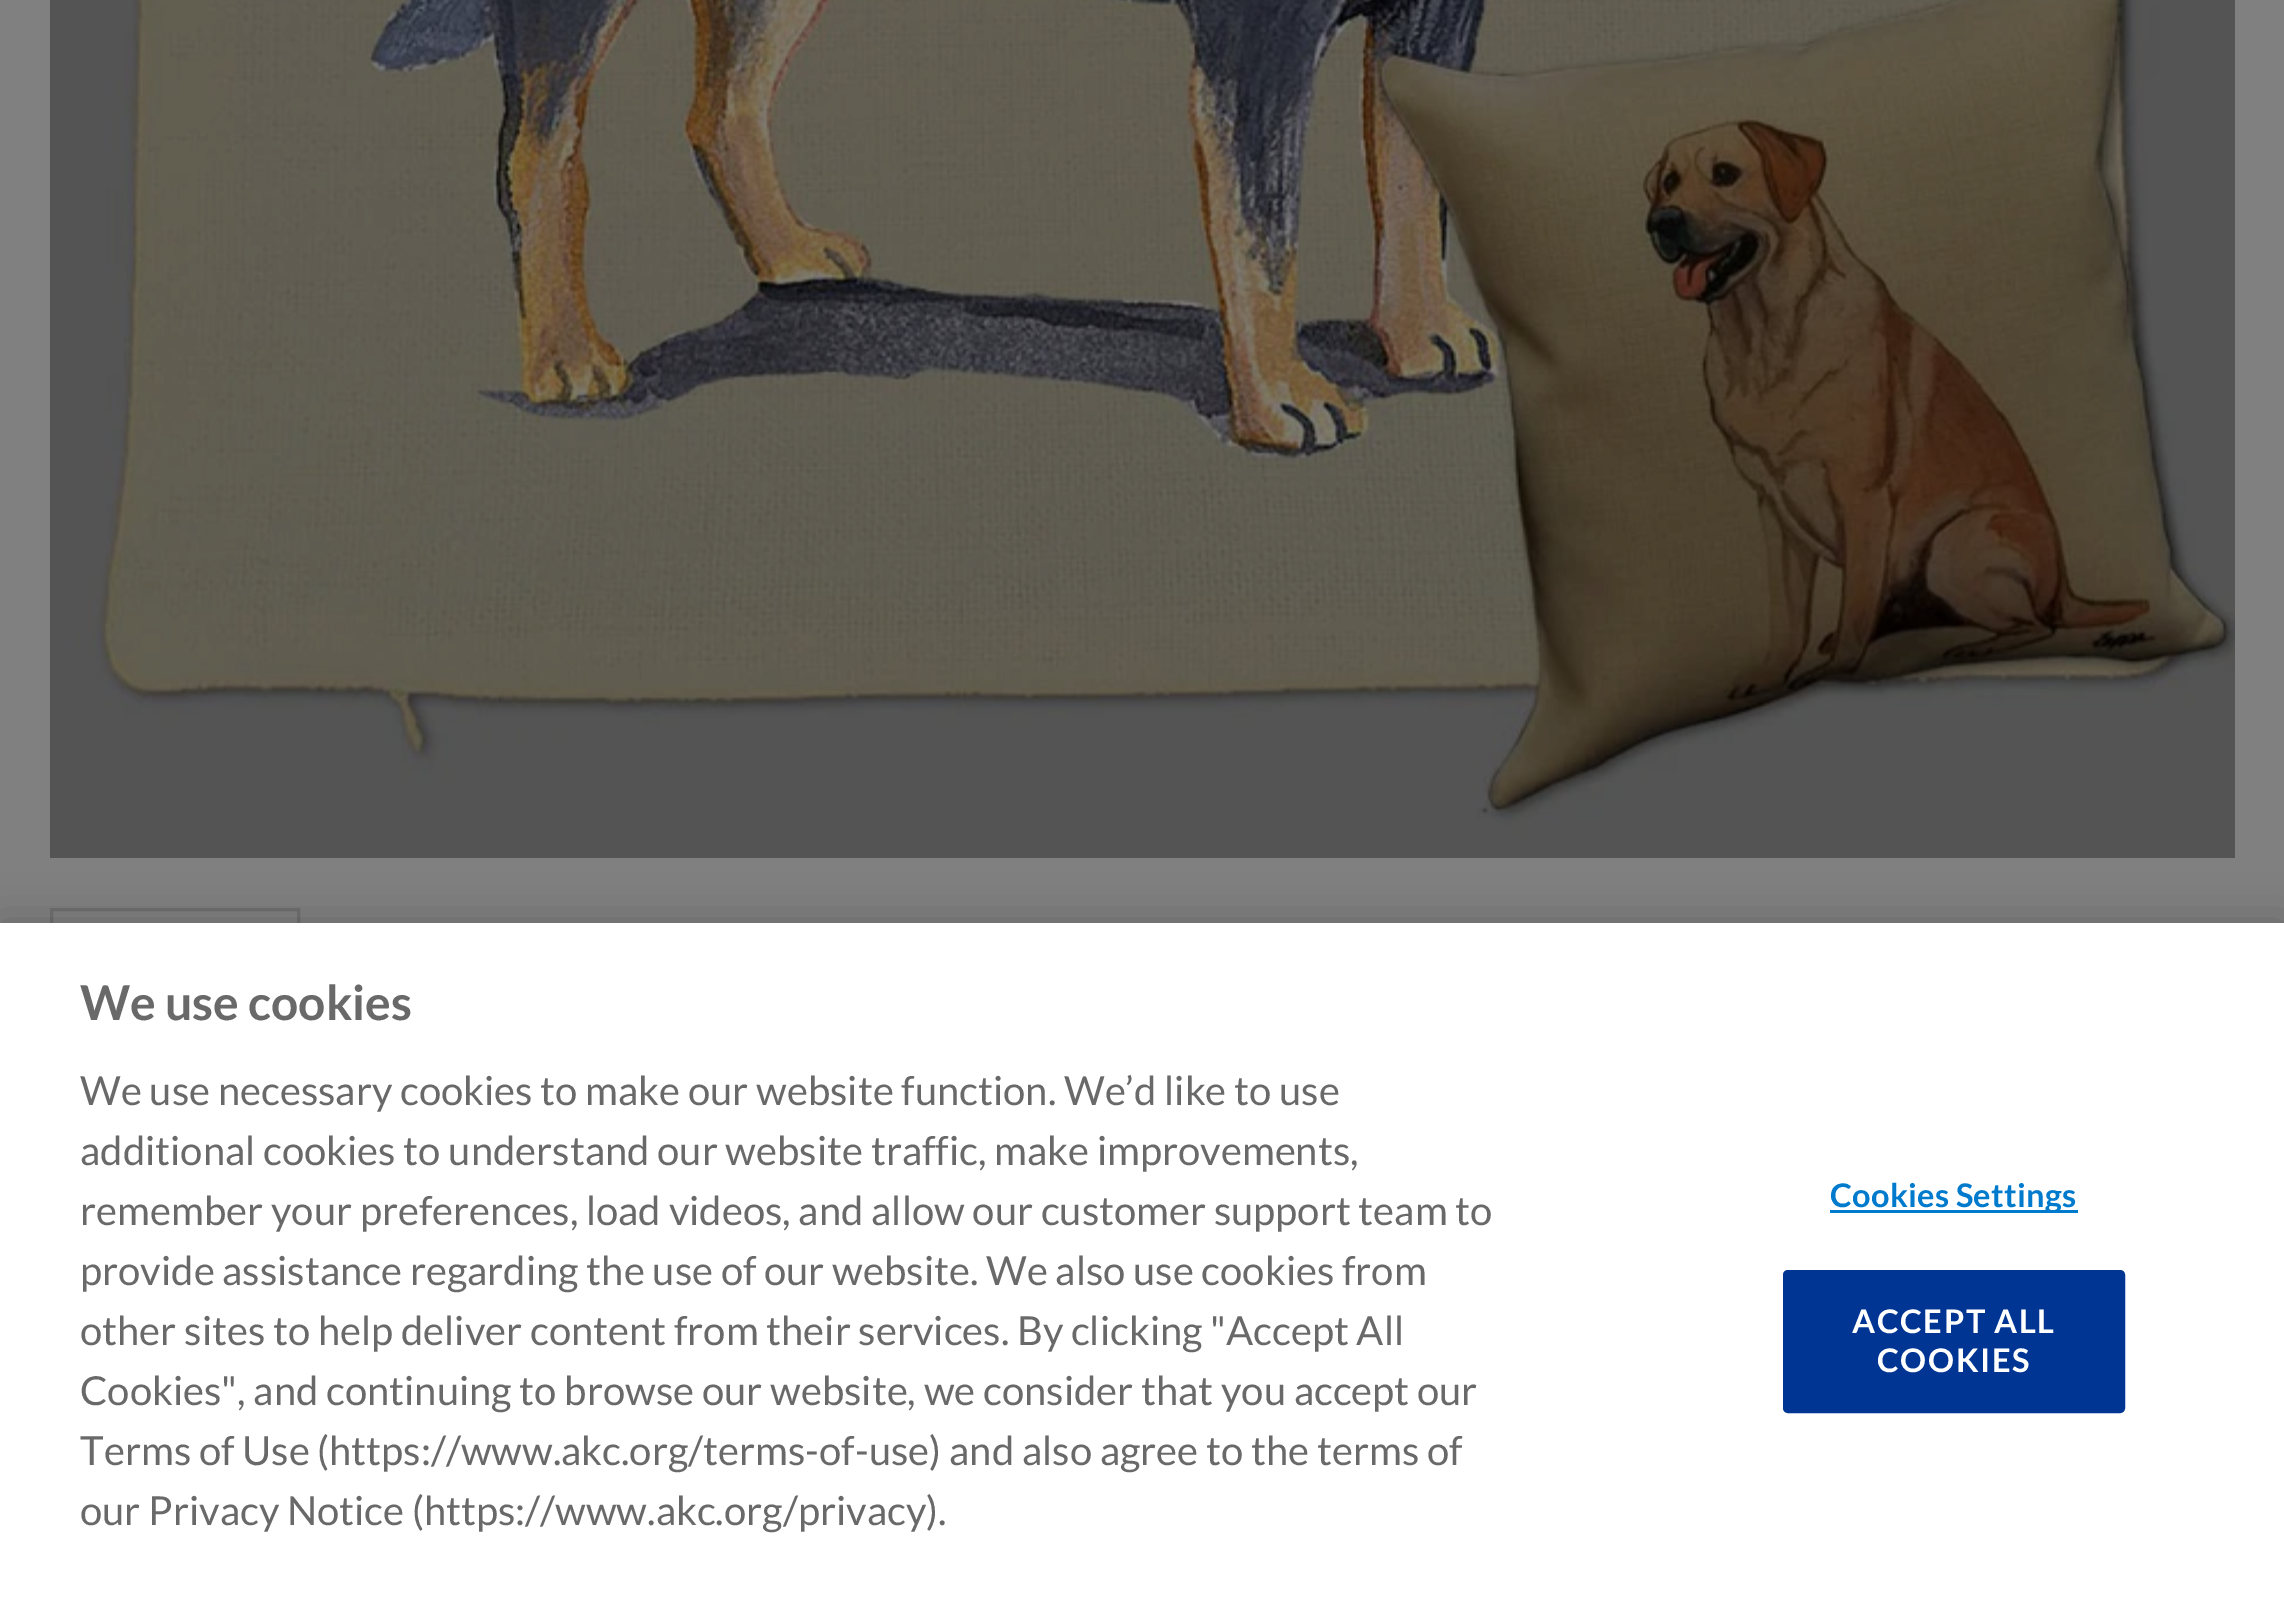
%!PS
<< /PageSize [2284 1623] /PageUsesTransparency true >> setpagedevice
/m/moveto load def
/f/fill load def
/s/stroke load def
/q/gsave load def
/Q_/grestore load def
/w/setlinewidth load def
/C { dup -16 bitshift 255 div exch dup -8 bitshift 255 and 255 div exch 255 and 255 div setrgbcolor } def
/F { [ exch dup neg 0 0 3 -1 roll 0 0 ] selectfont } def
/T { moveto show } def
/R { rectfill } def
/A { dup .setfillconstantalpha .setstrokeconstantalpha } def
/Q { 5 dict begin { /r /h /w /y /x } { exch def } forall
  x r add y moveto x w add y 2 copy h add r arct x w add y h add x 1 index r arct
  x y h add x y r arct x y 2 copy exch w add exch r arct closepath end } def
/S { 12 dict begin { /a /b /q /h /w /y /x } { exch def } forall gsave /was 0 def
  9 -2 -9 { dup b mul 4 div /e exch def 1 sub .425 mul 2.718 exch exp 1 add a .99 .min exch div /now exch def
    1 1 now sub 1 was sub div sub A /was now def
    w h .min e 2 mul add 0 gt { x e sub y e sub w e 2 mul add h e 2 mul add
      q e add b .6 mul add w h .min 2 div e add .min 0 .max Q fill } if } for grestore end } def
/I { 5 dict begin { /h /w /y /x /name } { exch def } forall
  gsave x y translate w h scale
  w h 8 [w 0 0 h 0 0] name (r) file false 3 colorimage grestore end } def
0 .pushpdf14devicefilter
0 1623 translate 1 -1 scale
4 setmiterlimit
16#808080 C
0 0 2284 1623 R
(1.rgb) 50 0 2185 858 I
16#6F6F6F C
3 w
51.5 909.5 247 247 rectstroke
16#000000 C
0 923 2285 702 0 22.5 .2 S
16#FFFFFF C
0 923 2284 700 R
/Lato-Bold 48 F
16#696969 C
(We use cookies) 80 1020 T
/Lato-Regular 40 F
(We use necessary cookies to make our website function. We’d like to use) 80 1105 T
(additional cookies to understand our website traffic, make improvements,) 80 1165 T
(remember your preferences, load videos, and allow our customer support team to) 80 1225 T
(provide assistance regarding the use of our website. We also use cookies from) 80 1285 T
(other sites to help deliver content from their services. By clicking "Accept All) 80 1345 T
(Cookies", and continuing to browse our website, we consider that you accept our) 80 1405 T
(Terms of Use \(https://www.akc.org/terms-of-use\) and also agree to the terms of) 80 1465 T
(our Privacy Notice \(https://www.akc.org/privacy\).) 80 1525 T
16#007ACC C
1830 1210 248 3 R
/Lato-Bold 32.5 F
1830 1207 m .3 0 (Cookies Settings) ashow
16#003594 C
1784.5 1271.5 339 140 3.5 Q q f Q_
s
16#FFFFFF C
1852 1333 m 1.6 0 (ACCEPT ALL) ashow
1877 1372 m 1.6 0 (COOKIES) ashow
.poppdf14devicefilter showpage
